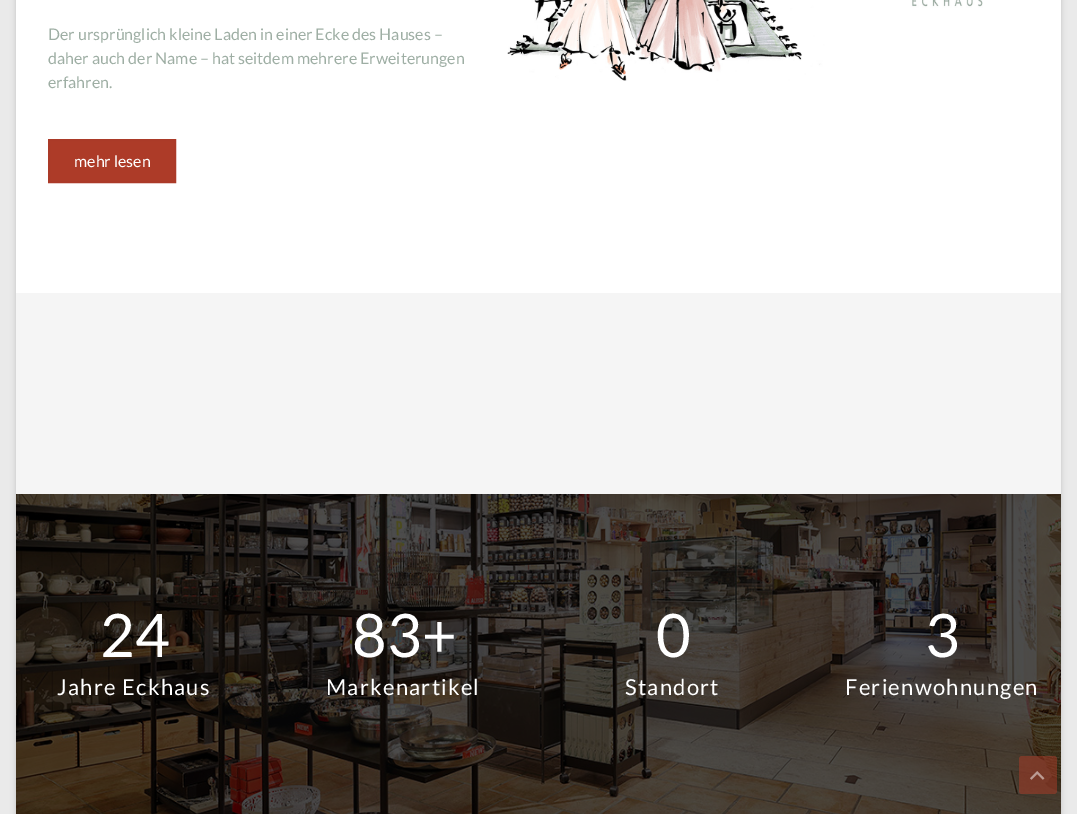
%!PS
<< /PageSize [1077 814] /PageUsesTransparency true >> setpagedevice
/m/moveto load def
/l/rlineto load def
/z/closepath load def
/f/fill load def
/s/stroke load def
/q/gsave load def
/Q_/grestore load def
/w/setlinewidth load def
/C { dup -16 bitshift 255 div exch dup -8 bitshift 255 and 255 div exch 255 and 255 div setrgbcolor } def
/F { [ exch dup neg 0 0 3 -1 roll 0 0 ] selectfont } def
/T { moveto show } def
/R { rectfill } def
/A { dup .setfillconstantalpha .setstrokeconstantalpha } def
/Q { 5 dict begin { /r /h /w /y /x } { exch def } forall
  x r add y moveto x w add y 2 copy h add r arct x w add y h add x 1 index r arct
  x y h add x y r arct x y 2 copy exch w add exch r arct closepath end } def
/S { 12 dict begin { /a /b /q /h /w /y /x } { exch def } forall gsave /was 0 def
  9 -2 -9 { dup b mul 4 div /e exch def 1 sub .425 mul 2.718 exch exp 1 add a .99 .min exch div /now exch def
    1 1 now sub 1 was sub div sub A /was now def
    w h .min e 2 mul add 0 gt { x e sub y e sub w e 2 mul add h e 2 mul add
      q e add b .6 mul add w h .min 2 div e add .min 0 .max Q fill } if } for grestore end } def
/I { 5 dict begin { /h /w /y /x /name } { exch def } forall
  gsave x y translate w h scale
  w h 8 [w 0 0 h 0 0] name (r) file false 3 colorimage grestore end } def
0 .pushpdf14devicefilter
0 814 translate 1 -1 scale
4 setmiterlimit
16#EAEAEA C
0 0 1077 814 R
16#646464 C
16 -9 1045 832 0 3 .3 S
16#FFFFFF C
16 0 1045 293 R
/Lato-Regular 16 F
16#9EAEA4 C
(Der ursprünglich kleine Laden in einer Ecke des Hauses –) 48 40 T
(daher auch der Name – hat seitdem mehrere Erweiterungen) 48 64 T
(erfahren.) 48 88 T
16#AD3B28 C
49 140 m 126 0 l 0 42 l -126 0 l z q f Q_
16#AB3A28 C
2 w
s
16#FFFFFF C
(mehr lesen) 74 167 T
(1.rgb) 507 0 476 81 I
16#F5F5F5 C
16 293 1045 201 R
(2.rgb) 16 494 1045 320 I
/Lato-Regular 60 F
16#FFFFFF C
(24) 100 657 T
/Lato-Regular 22 F
57 695 m 1.25 0 (Jahre Eckhaus) ashow
/Lato-Regular 60 F
(83+) 352 657 T
/Lato-Regular 22 F
326 695 m 1.25 0 (Markenartikel) ashow
/Lato-Regular 60 F
(0) 656 657 T
/Lato-Regular 22 F
625 695 m 1.25 0 (Standort) ashow
/Lato-Regular 60 F
(3) 925 657 T
/Lato-Regular 22 F
845 695 m 1.25 0 (Ferienwohnungen) ashow
0.5 A
16#AD3B28 C
1019 756 38 38 3 Q f
1 A
(3.rgb) 1030 771 15 9 I
.poppdf14devicefilter showpage
